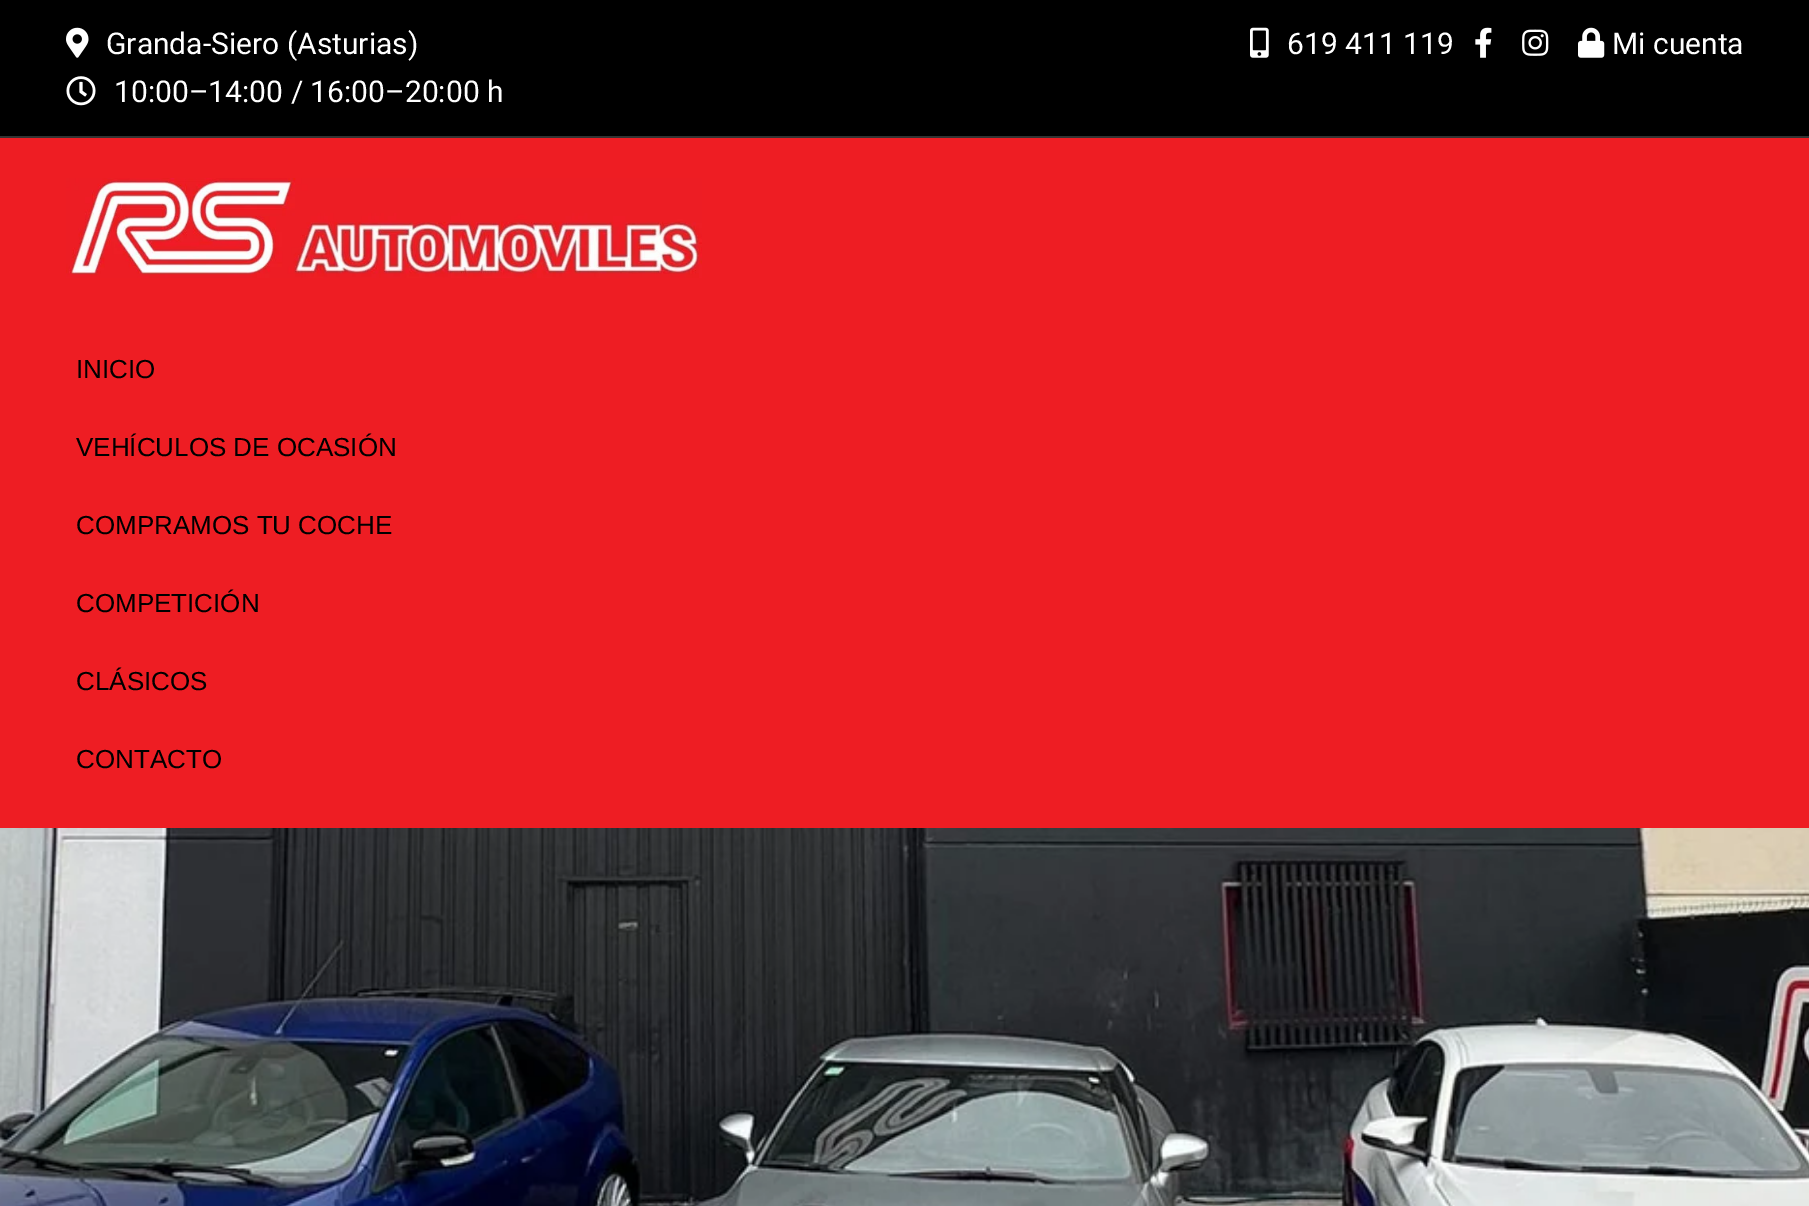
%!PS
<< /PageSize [1809 1206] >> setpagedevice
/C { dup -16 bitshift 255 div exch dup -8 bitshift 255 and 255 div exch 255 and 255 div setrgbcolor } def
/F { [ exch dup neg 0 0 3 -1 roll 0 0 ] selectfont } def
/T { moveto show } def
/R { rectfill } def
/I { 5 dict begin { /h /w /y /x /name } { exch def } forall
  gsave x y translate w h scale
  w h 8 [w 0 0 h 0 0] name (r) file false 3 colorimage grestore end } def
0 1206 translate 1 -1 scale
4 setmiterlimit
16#FFFFFF C
0 0 1809 1206 R
16#EE1D23 C
0 138 1809 690 R
16#000000 C
0 0 1809 136 R
16#333333 C
0 136 1809 2 R
(1.rgb) 66 27 23 31 I
/Roboto-Regular 30 F
16#FFFFFF C
(Granda-Siero \(Asturias\)) 106 54 T
(2.rgb) 66 76 30 30 I
(10:00–14:00 / 16:00–20:00 h) 114 102 T
(3.rgb) 1250 27 19 31 I
(619 411 119) 1287 54 T
(4.rgb) 1475 27 17 31 I
(5.rgb) 1522 29 27 27 I
(6.rgb) 1578 27 27 31 I
(Mi cuenta) 1612 54 T
(7.rgb) 66 178 636 100 I
/LiberationSans-Regular 26 F
16#000000 C
(INICIO) 76 378 T
(VEHÍCULOS DE OCASIÓN) 76 456 T
(COMPRAMOS TU COCHE) 76 534 T
(COMPETICIÓN) 76 612 T
(CLÁSICOS) 76 690 T
(CONTACTO) 76 768 T
(8.rgb) 0 828 1809 378 I
showpage
